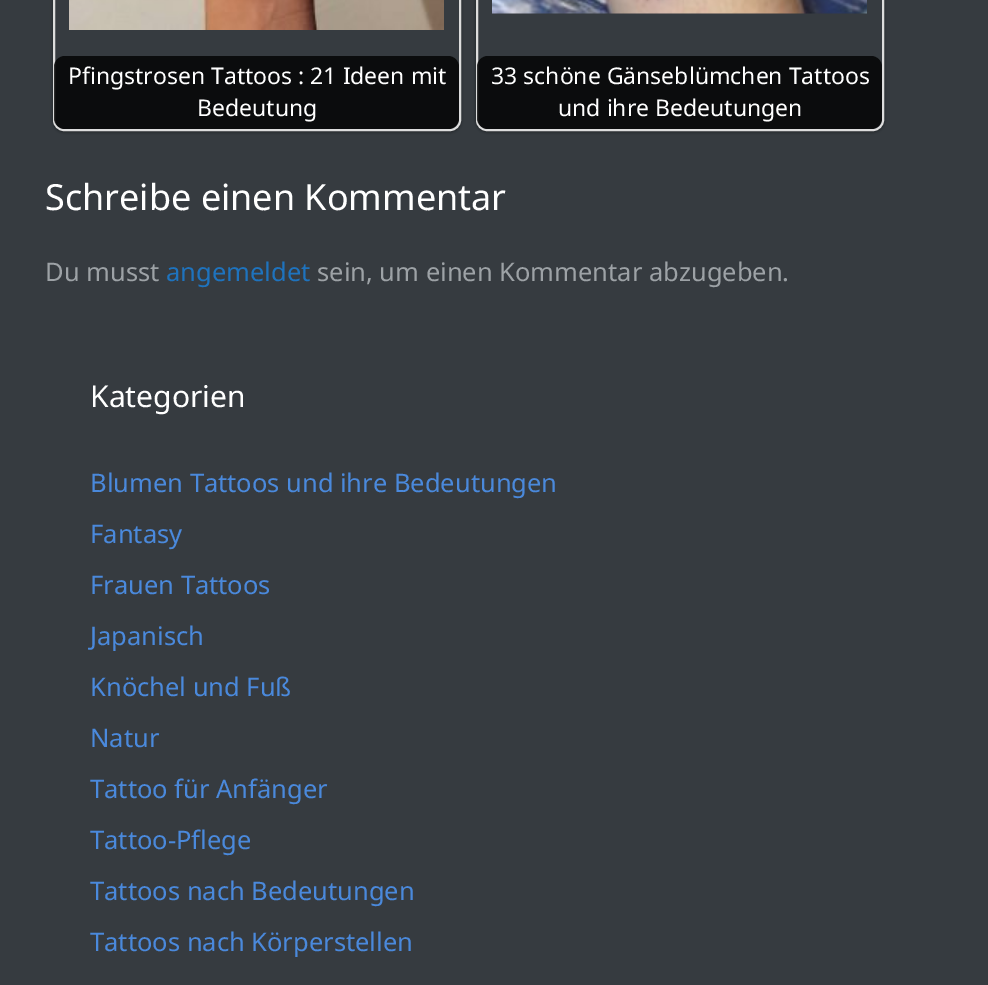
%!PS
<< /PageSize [988 985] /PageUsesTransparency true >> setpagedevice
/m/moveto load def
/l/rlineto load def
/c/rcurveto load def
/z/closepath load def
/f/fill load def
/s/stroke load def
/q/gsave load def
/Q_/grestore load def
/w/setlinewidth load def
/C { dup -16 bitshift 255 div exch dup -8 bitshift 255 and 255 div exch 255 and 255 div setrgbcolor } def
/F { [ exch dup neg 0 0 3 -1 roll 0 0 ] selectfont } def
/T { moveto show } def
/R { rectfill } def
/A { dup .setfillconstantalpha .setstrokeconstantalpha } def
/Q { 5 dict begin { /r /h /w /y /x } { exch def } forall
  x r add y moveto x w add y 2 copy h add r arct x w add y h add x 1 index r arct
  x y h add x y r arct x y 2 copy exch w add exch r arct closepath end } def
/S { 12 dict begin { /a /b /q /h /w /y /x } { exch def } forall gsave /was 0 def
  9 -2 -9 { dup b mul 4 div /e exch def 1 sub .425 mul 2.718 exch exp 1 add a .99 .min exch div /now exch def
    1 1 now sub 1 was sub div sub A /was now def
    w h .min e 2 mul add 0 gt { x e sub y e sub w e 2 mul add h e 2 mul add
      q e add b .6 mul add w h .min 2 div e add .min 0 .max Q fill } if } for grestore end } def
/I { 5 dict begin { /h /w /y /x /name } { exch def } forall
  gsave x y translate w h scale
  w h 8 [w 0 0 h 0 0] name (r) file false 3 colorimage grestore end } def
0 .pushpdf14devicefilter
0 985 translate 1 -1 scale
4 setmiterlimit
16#363B40 C
0 0 988 985 R
q
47 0 m 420 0 l 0 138 l -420 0 l z 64 -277 m 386 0 l 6 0 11 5 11 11 c 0 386 l 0 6 -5 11 -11 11 c -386 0 l -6 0 -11 -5 -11 -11 c 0 -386 l 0 -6 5 -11 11 -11 c z eoclip newpath
16#000000 C
53 -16 408 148 11 1.5 .4 S
Q_
16#DDDDDD C
2 w
54 -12 406 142 10 Q s
(1.rgb) 69 0 375 30 I
0.8 A
16#000000 C
54 56 405 73 11 Q f
/NotoSans-Regular 23 F
1 A
16#FFFFFF C
(Pfingstrosen Tattoos : 21 Ideen mit) 68 84 T
(Bedeutung) 197 116 T
q
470 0 m 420 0 l 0 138 l -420 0 l z 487 -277 m 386 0 l 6 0 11 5 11 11 c 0 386 l 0 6 -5 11 -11 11 c -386 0 l -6 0 -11 -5 -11 -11 c 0 -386 l 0 -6 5 -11 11 -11 c z eoclip newpath
16#000000 C
476 -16 408 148 11 1.5 .4 S
Q_
16#DDDDDD C
477 -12 406 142 10 Q s
(2.rgb) 492 0 375 14 I
0.8 A
16#000000 C
477 56 405 73 11 Q f
1 A
16#FFFFFF C
(33 schöne Gänseblümchen Tattoos) 491 84 T
(und ihre Bedeutungen) 558 116 T
/NotoSans-Regular 36 F
(Schreibe einen Kommentar) 45 210 T
/NotoSans-Regular 25.5 F
16#9DA2A6 C
(Du musst) 45 281 T
16#1E73BE C
(angemeldet) 166 281 T
16#9DA2A6 C
(sein, um einen Kommentar abzugeben.) 317 281 T
/NotoSans-Regular 30 F
16#FFFFFF C
(Kategorien) 90 407 T
/NotoSans-Regular 25.5 F
16#4A89DC C
(Blumen Tattoos und ihre Bedeutungen) 90 492 T
(Fantasy) 90 543 T
(Frauen Tattoos) 90 594 T
(Japanisch) 90 645 T
(Knöchel und Fuß) 90 696 T
(Natur) 90 747 T
(Tattoo für Anfänger) 90 798 T
(Tattoo-Pflege) 90 849 T
(Tattoos nach Bedeutungen) 90 900 T
(Tattoos nach Körperstellen) 90 951 T
.poppdf14devicefilter showpage
